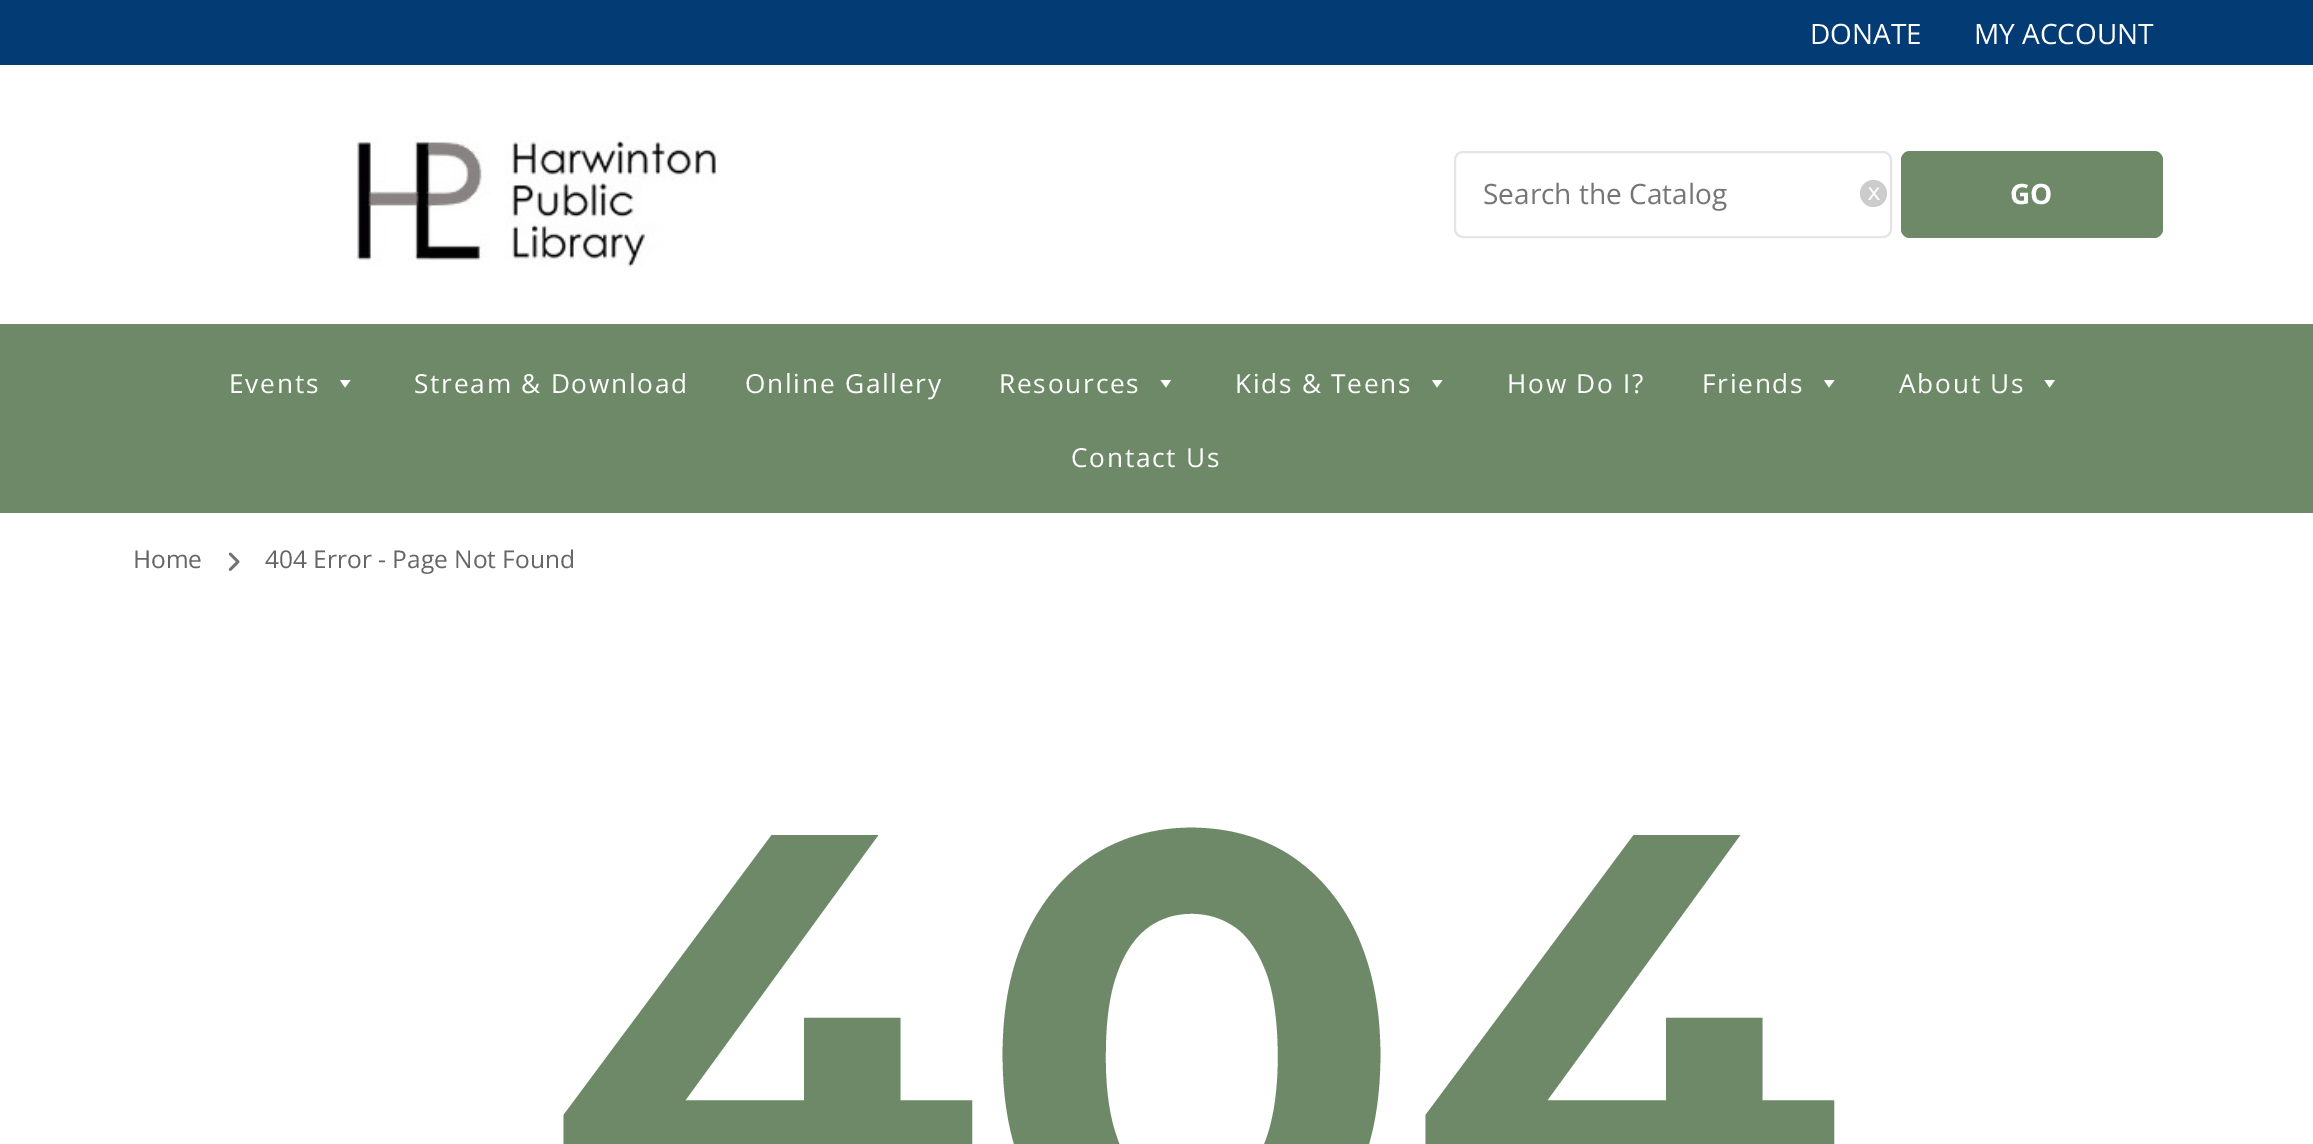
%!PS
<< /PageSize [2313 1144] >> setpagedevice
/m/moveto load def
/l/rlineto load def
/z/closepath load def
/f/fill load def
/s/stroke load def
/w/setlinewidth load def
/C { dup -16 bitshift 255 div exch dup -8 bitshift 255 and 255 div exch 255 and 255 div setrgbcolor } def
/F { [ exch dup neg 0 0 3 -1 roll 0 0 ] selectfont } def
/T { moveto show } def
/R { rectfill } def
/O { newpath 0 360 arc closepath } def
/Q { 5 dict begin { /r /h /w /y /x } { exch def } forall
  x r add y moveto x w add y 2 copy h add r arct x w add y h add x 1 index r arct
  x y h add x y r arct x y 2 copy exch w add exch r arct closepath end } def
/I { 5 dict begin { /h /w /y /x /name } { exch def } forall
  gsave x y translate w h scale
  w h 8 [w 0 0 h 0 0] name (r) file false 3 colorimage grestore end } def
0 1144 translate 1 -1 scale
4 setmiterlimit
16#FFFFFF C
0 0 2313 1144 R
16#033C75 C
0 0 2313 65 R
/OpenSans-Regular 28 F
16#FFFFFF C
(DONATE) 1810 44 T
(MY ACCOUNT) 1974 44 T
(1.rgb) 356 136 361 131 I
16#E5E5E5 C
2 w
1455 152 436 85 8 Q s
16#757575 C
(Search the Catalog) 1483 204 T
16#CCCCCC C
1873.5 193.5 13.5 O f
/DejaVuSansMono-Regular 23 F
16#FFFFFF C
(x) 1867 200 T
16#6E8968 C
1901 151 262 87 9 Q f
/OpenSans-Bold 28 F
16#FFFFFF C
(GO) 2010 204 T
16#6E8968 C
0 324 2313 189 R
/OpenSans-Regular 26.25 F
16#FFFFFF C
229 393 m 1.75 0 (Events) ashow
350.5 380 m -5.5 7.5 l -5 -7.5 l z f
414 393 m 1.75 0 (Stream & Download) ashow
745 393 m 1.75 0 (Online Gallery) ashow
999 393 m 1.75 0 (Resources) ashow
1171 380 m -5 7.5 l -5.5 -7.5 l z f
1235 393 m 1.75 0 (Kids & Teens) ashow
1442.5 380 m -5.5 7.5 l -5 -7.5 l z f
1507 393 m 1.75 0 (How Do I?) ashow
1702 393 m 1.75 0 (Friends) ashow
1834.5 380 m -5.5 7.5 l -5 -7.5 l z f
1899 393 m 1.75 0 (About Us) ashow
2055 380 m -5.5 7.5 l -5 -7.5 l z f
1071 467 m 1.75 0 (Contact Us) ashow
/OpenSans-Regular 24.5 F
16#666666 C
(Home) 133 568 T
(2.rgb) 228 552 12 19 I
(404 Error - Page Not Found) 265 568 T
/Montserrat-Bold 630 F
16#6E8968 C
(404) 544 1276 T
showpage
